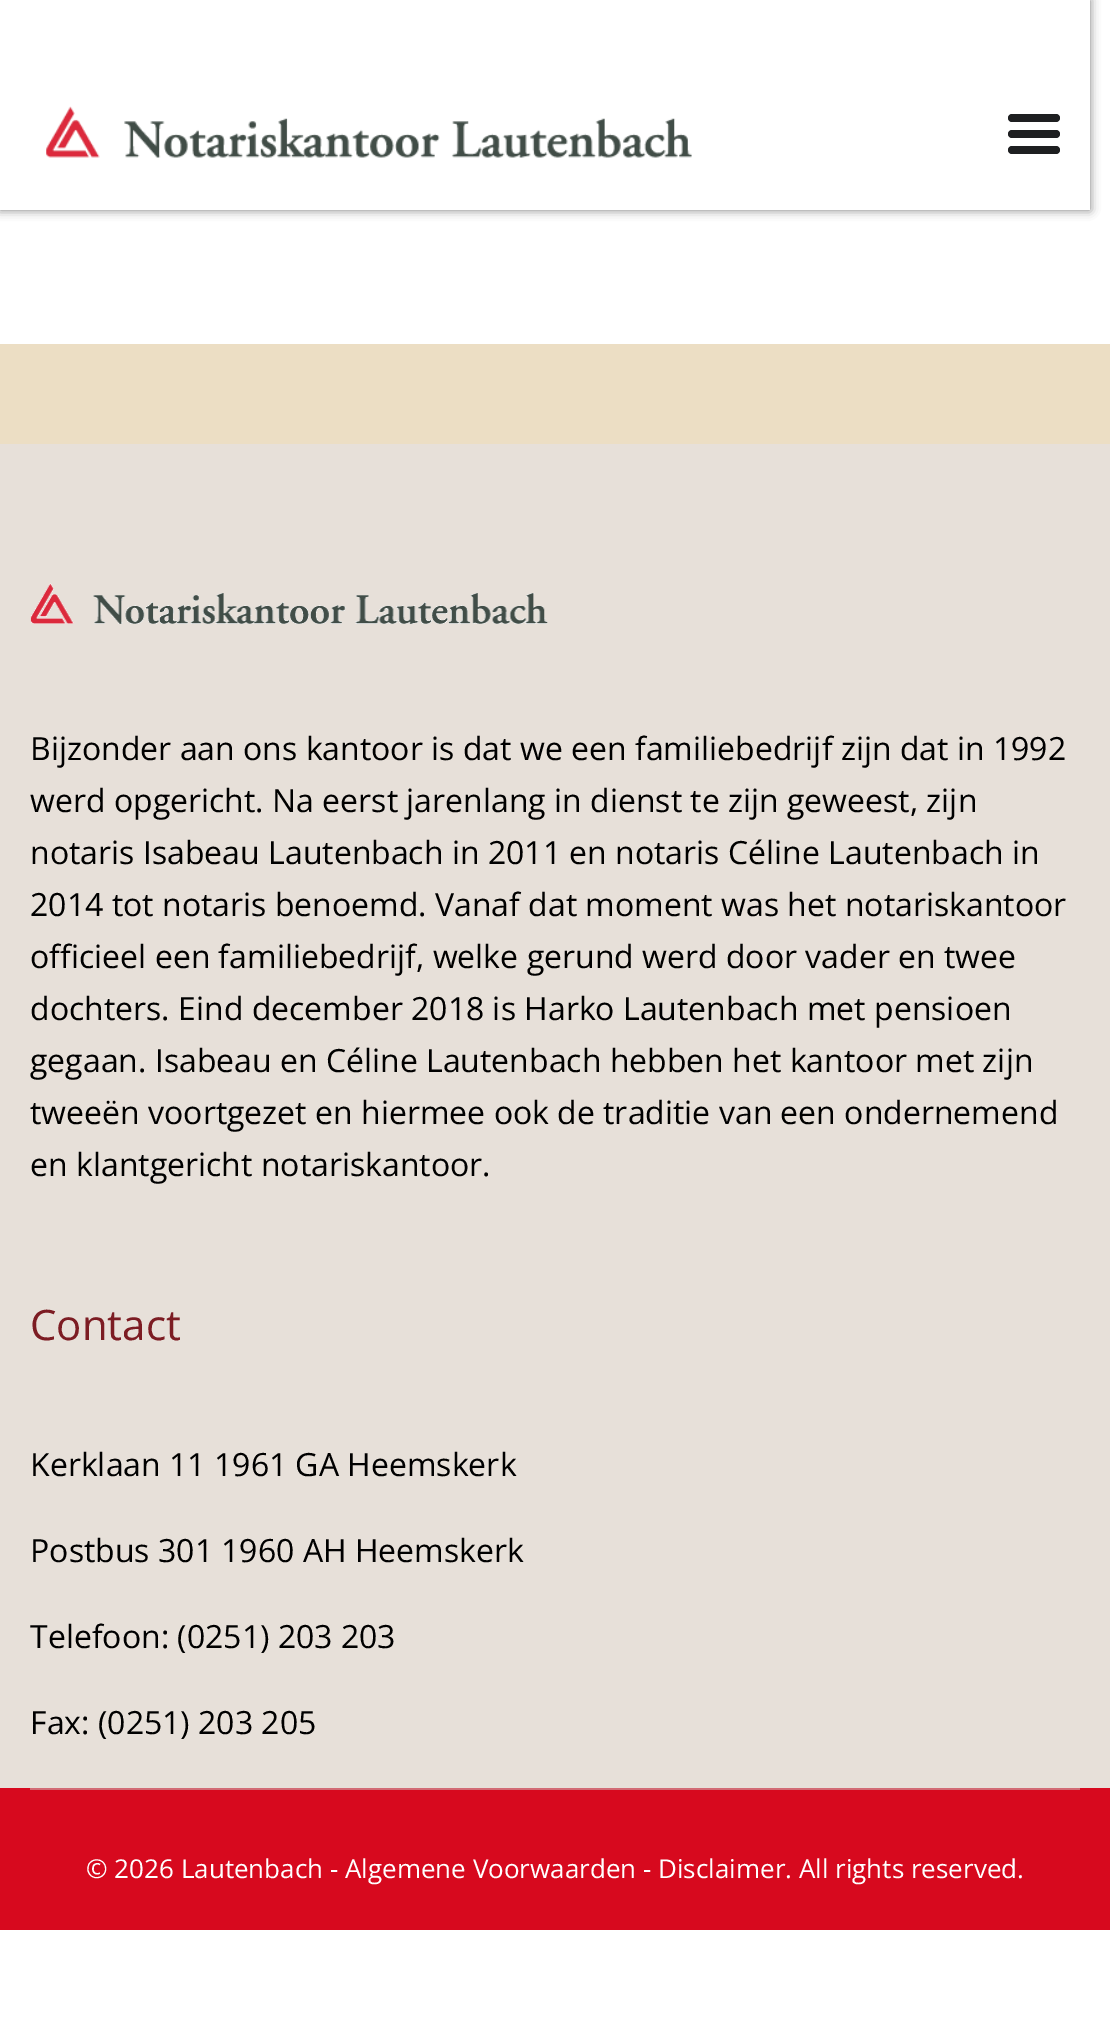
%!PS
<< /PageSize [1110 2031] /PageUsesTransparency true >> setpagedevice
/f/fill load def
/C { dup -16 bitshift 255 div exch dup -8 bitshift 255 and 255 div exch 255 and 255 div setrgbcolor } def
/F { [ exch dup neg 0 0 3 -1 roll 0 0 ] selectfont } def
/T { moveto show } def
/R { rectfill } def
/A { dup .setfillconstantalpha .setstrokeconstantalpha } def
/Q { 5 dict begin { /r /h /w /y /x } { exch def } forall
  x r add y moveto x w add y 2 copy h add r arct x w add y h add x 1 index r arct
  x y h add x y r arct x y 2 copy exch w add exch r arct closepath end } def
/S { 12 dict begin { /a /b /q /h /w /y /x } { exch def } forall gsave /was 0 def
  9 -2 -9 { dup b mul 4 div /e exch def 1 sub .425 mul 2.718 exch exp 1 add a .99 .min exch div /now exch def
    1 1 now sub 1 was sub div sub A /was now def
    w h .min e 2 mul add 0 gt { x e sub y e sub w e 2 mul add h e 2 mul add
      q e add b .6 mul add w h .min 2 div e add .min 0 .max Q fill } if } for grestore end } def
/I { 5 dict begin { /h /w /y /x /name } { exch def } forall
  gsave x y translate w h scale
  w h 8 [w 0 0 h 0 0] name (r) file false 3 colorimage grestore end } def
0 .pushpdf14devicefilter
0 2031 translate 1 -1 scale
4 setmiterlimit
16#FFFFFF C
0 0 1110 2031 R
16#000000 C
0 0 1090 210 0 5 .52 S
16#FFFFFF C
0 0 1090 210 R
(1.rgb) 46 106 646 52 I
16#1E1F21 C
1008 130 52 8 4 Q f
1008 114 52 8 4 Q f
1008 146 52 8 4 Q f
16#ECDEC4 C
0 344 1110 100 R
16#E7E0D9 C
0 444 1110 1344 R
(2.rgb) 30 583 518 41 I
/OpenSans-Regular 32 F
16#000000 C
(Bijzonder aan ons kantoor is dat we een familiebedrijf zijn dat in 1992) 30 760 T
(werd opgericht. Na eerst jarenlang in dienst te zijn geweest, zijn) 30 812 T
(notaris Isabeau Lautenbach in 2011 en notaris Céline Lautenbach in) 30 864 T
(2014 tot notaris benoemd. Vanaf dat moment was het notariskantoor) 30 916 T
(officieel een familiebedrijf, welke gerund werd door vader en twee) 30 968 T
(dochters. Eind december 2018 is Harko Lautenbach met pensioen) 30 1020 T
(gegaan. Isabeau en Céline Lautenbach hebben het kantoor met zijn) 30 1072 T
(tweeën voortgezet en hiermee ook de traditie van een ondernemend) 30 1124 T
(en klantgericht notariskantoor.) 30 1176 T
/OpenSans-Regular 42 F
16#7C1C23 C
(Contact) 30 1340 T
/OpenSans-Regular 32 F
16#000000 C
(Kerklaan 11 1961 GA Heemskerk) 30 1476 T
(Postbus 301 1960 AH Heemskerk) 30 1562 T
(Telefoon: \(0251\) 203 203) 30 1648 T
(Fax: \(0251\) 203 205) 30 1734 T
16#D7091E C
0 1788 1110 142 R
16#D26B75 C
30 1788 1050 2 R
/OpenSans-Regular 26 F
16#FFFFFF C
(© 2026 Lautenbach - Algemene Voorwaarden - Disclaimer. All rights reserved.) 86 1878 T
.poppdf14devicefilter showpage
